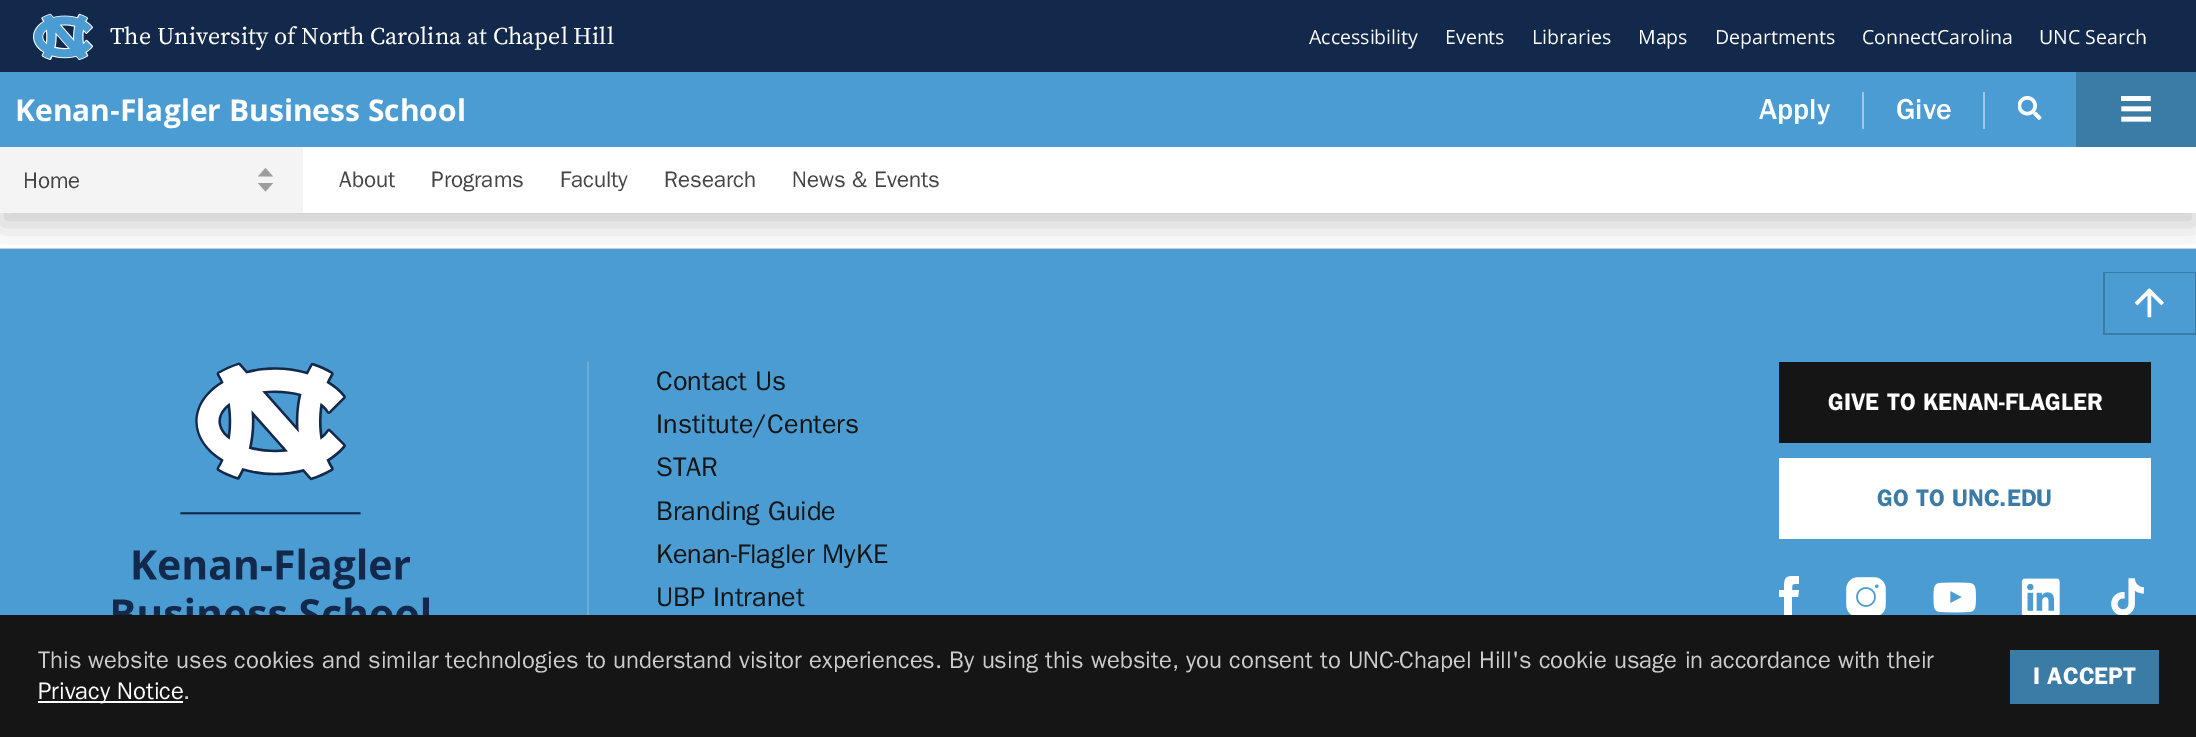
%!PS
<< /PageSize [2196 737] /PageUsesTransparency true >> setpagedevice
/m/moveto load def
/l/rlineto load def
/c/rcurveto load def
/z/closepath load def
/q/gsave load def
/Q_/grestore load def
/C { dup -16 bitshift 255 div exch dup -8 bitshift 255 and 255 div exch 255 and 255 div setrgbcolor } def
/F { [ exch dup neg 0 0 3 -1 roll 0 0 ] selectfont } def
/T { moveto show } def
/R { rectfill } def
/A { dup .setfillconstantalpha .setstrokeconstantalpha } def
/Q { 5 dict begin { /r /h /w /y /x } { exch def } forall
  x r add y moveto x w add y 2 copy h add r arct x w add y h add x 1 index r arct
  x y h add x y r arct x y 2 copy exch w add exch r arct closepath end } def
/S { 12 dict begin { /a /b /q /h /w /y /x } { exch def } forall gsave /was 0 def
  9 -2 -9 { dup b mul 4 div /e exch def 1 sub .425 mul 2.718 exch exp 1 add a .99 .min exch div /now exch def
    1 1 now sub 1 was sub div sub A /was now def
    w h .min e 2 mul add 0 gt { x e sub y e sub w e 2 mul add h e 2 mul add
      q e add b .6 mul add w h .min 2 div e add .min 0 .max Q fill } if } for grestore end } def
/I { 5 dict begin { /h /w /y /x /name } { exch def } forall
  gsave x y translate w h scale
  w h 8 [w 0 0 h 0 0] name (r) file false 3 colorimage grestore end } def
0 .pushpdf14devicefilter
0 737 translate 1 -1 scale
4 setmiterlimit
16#FFFFFF C
0 0 2196 737 R
16#13294B C
0 0 2196 72 R
(1.rgb) 33 13 60 47 I
/SourceSerifPro-Regular 24 F
16#FFFFFF C
(The University of North Carolina at Chapel Hill) 110 44 T
/OpenSans-Regular 19.5 F
(Accessibility) 1309 44 T
(Events) 1445 44 T
(Libraries) 1532 44 T
(Maps) 1638 44 T
(Departments) 1715 44 T
(ConnectCarolina) 1862 44 T
(UNC Search) 2039 44 T
16#CCCCCC C
0 248 2196 1 R
16#4B9CD3 C
0 249 2196 366 R
q
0 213 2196 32 rectclip
16#000000 C
0 159 2196 66 0 15 .21 S
Q_
0 72 2076 75 R
/OpenSans-Bold 30 F
16#FFFFFF C
(Kenan-Flagler Business School) 15 121 T
/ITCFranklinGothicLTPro-Medium 30 F
(Apply) 1759 119 T
16#9DC9E7 C
1862 92 2 37 R
16#FFFFFF C
(Give) 1896 119 T
16#9DC9E7 C
1983 92 2 37 R
(2.rgb) 2018 96 24 24 I
16#3B7CA7 C
2076 72 120 75 R
(3.rgb) 2121 96 30 26 I
16#F4F4F4 C
0 147 303 66 R
16#9D9D9D C
258 183 m 15 0 l -7.5 8.5 l z 258 176.5 m 7.5 -8.5 l 7.5 8.5 l z eofill
/ITCFranklinGothicLTPro-Regular 22.5 F
16#454545 C
(Home) 23 188 T
(About) 339 187 T
(Programs) 431 187 T
(Faculty) 560 187 T
(Research) 664 187 T
(News & Events) 792 187 T
16#3B7CA7 C
2103 272 93 63 R
16#4B9CD3 C
2105 273 90 60 R
(4.rgb) 2135 288 29 30 I
(5.rgb) 113 362 316 253 I
16#72ABD1 C
587 362 2 253 R
/ITCFranklinGothicLTPro-Regular 27 F
16#151515 C
(Contact Us) 656 390 T
(Institute/Centers) 656 433 T
(STAR) 656 476 T
(Branding Guide) 656 520 T
(Kenan-Flagler MyKE) 656 563 T
(UBP Intranet) 656 606 T
1779 362 372 81 R
/ITCFranklinGothicLTPro-SemiBold 24 F
16#FFFFFF C
(GIVE TO KENAN-FLAGLER) 1828 410 T
1779 458 372 81 R
16#3B7CA7 C
(GO TO UNC.EDU) 1877 506 T
16#FFFFFF C
1779 590 m 0 7 l 5 0 l 0 22 l 8 0 l 0 -22 l 6 0 l 1 -7 l -7 0 l 0 -7 0 -6 7 -6 c 0 -8 l -14 0 -15 0 -15 14 c z eofill
(6.rgb) 1846 577 40 38 I
(7.rgb) 1933 582 43 31 I
(8.rgb) 2021 578 39 37 I
(9.rgb) 2111 578 33 37 I
16#151515 C
0 615 2196 122 R
/ITCFranklinGothicLTPro-Regular 24 F
16#CCCCCC C
(This website uses cookies and similar technologies to understand visitor experiences. By using this website, you consent to UNC-Chapel Hill's cookie usage in accordance with their) 38 668 T
16#FFFFFF C
38 701 145 2 R
(Privacy Notice) 38 699 T
16#CCCCCC C
(.) 183 699 T
16#3B7CA7 C
2010 650 149 54 R
/ITCFranklinGothicLTPro-SemiBold 24 F
16#FFFFFF C
(I ACCEPT) 2033 684 T
.poppdf14devicefilter showpage
